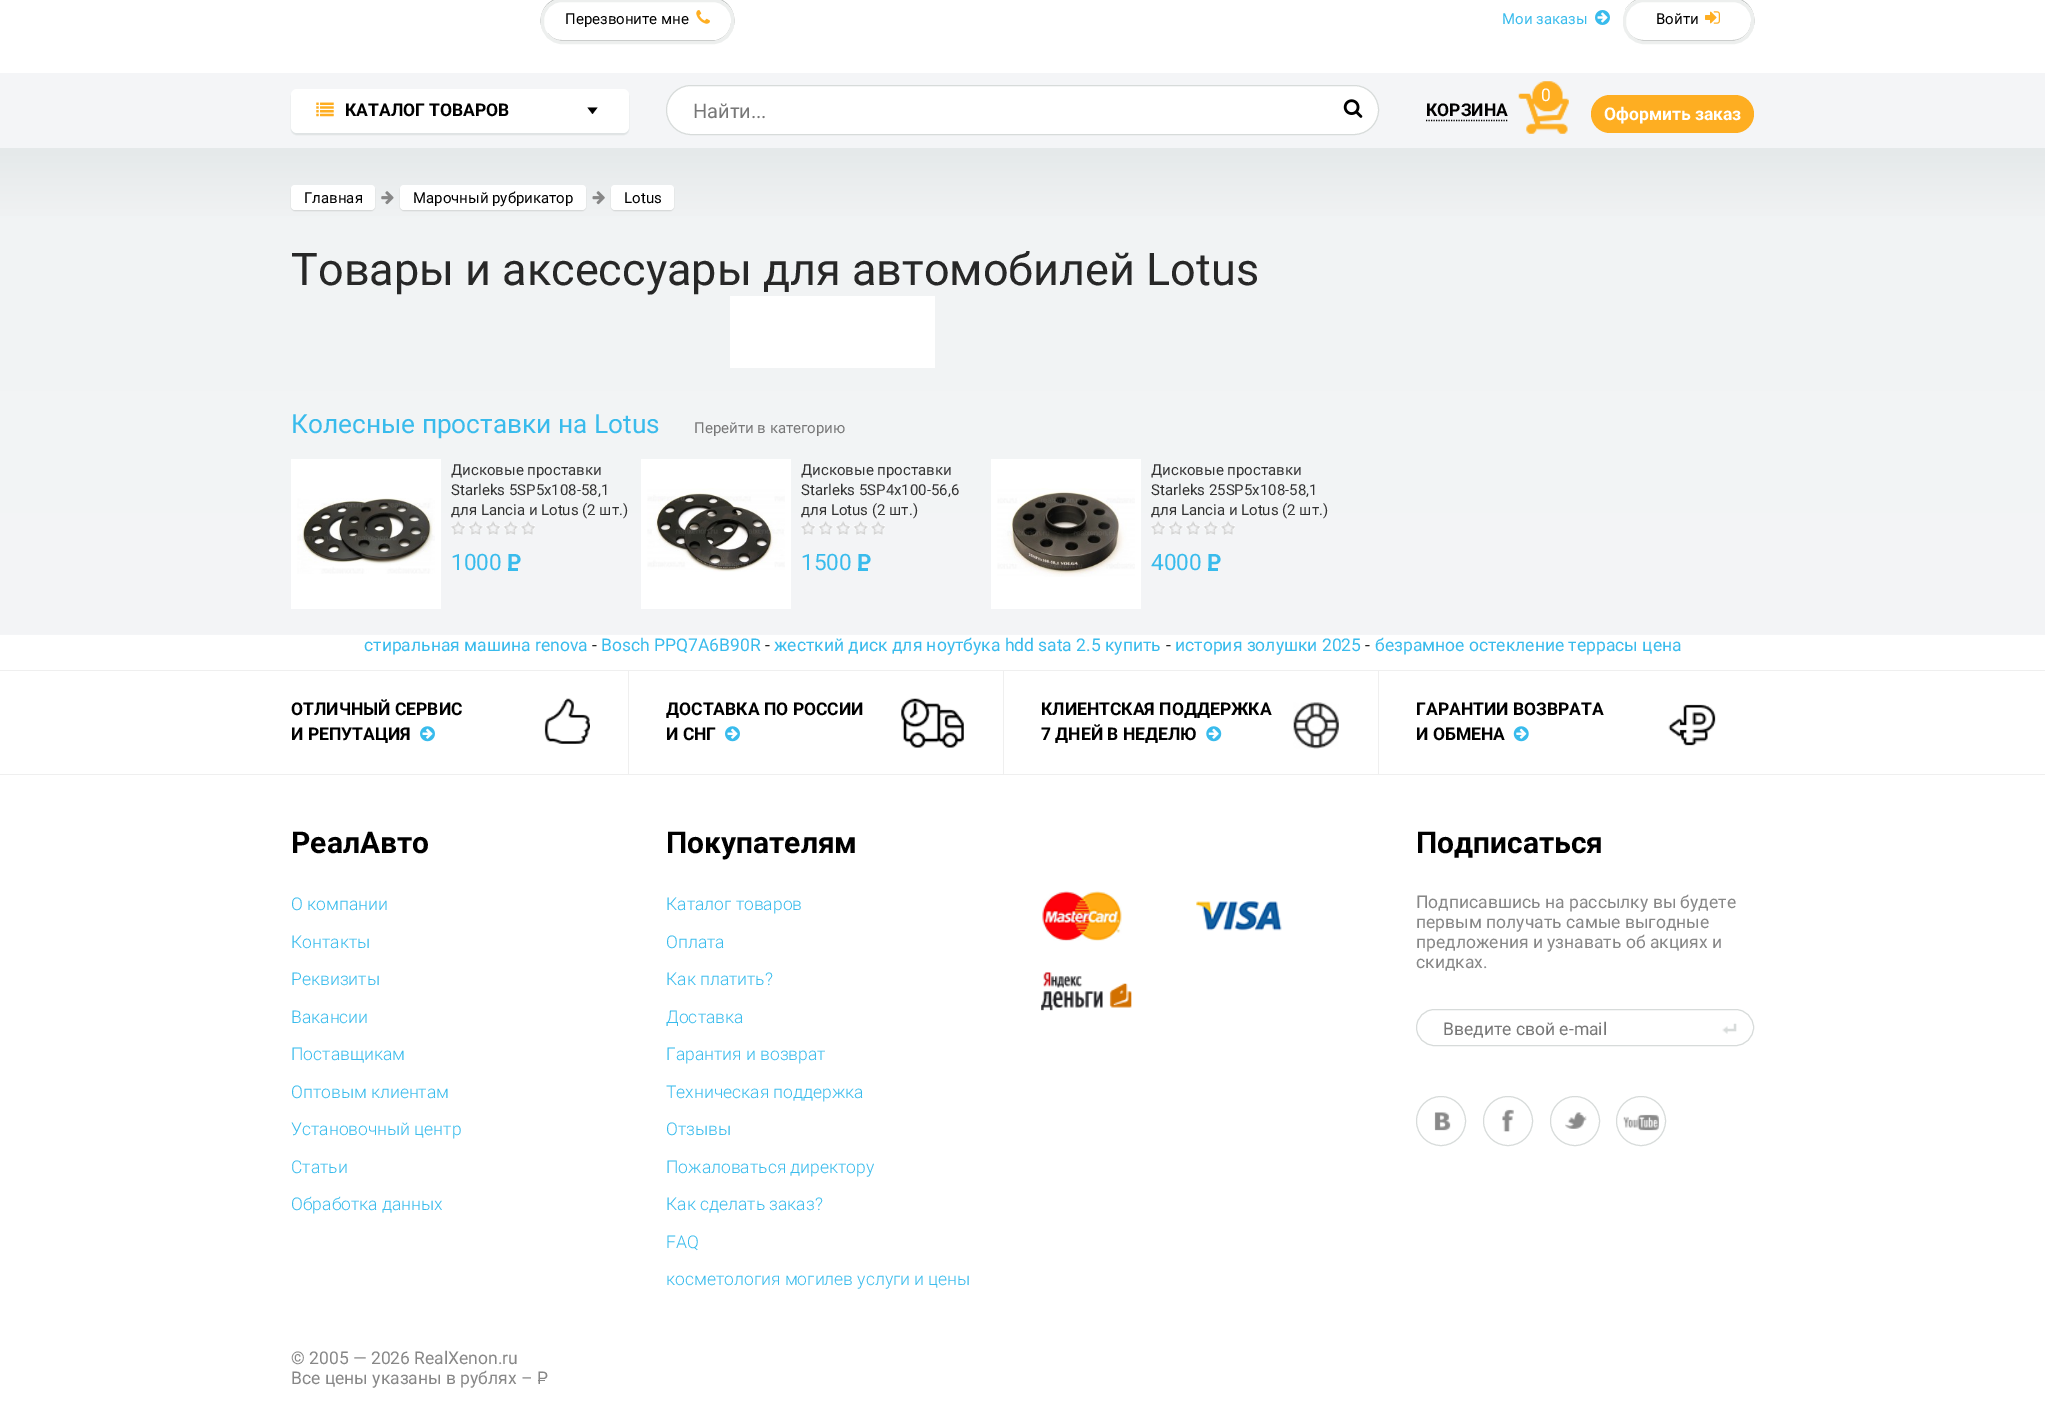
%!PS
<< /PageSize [2045 1425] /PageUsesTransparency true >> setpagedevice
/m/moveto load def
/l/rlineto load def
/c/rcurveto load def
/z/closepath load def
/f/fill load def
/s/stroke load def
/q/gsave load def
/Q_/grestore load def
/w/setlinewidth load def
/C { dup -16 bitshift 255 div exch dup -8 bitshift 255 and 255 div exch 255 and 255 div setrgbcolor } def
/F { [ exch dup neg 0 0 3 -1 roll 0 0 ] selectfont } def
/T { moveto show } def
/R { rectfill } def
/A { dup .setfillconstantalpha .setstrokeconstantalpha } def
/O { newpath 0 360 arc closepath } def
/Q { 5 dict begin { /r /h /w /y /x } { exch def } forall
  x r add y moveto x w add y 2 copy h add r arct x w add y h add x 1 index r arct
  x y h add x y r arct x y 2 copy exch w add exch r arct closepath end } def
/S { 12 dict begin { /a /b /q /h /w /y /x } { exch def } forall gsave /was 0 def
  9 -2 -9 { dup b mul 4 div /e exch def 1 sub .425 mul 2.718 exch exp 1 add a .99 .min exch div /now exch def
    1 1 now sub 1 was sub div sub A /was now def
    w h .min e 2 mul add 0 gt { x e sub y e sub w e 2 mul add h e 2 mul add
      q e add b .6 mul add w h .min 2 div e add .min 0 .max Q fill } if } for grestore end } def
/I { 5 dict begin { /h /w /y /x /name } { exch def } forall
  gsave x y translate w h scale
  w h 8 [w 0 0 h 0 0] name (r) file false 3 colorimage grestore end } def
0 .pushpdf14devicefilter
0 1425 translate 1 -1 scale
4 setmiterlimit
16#FFFFFF C
0 0 2045 1425 R
16#BCBFBD C
562 -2 m -17 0 -26 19 -19 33 c -2 -5 -2 -10 -1 -15 c 4 -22 30 -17 46 -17 c 100 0 l 15 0 41 -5 45 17 c 1 5 1 10 -1 15 c 7 -14 -2 -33 -19 -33 c z f
16#FFFFFF C
541 -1 193 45 21 Q f
16#CBCDCC C
548 33 m 3 5 9 8 15 8 c 149 0 l 10 0 18 -8 19 -18 c -1 8 -6 15 -15 17 c -154 0 l -7 0 -11 -3 -14 -7 c z f
16#EDEFEE C
3 w
542.5 .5 190 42 19.5 Q s
/Roboto-Regular 15 F
16#000000 C
(Перезвоните мне) 565 24 T
(1.rgb) 696 10 14 14 I
16#39BBEC C
(Мои заказы) 1502 24 T
(2.rgb) 1595 10 15 15 I
16#BCBFBD C
1644 -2 m -8 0 -15 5 -19 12 c 4 -7 11 -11 19 -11 c 88 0 l 12 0 22 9 22 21 c 0 2 l 0 3 -1 6 -2 9 c 7 -14 -2 -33 -19 -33 c z f
16#FFFFFF C
1623 -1 131 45 21 Q f
16#CBCDCC C
1625 21 m 0 1 l 0 10 9 19 19 19 c 88 0 l 10 0 19 -9 19 -19 c 0 -1 l 0 11 -8 19 -19 19 c -88 0 l -11 0 -19 -8 -19 -19 c z f
16#EDEFEE C
1624.5 .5 128 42 19.5 Q s
16#000000 C
(Войти) 1656 24 T
(3.rgb) 1705 11 15 13 I
16#F4F5F7 C
0 73 2045 75 R
16#DEE2E3 C
291 91 338 44 6 .5 1 S
16#FFFFFF C
291 89 338 44 6 Q f
(4.rgb) 316 102 18 15 I
/Roboto-Bold 17.5 F
16#000000 C
(КАТАЛОГ ТОВАРОВ) 345 116 T
587.5 107.5 m 10 0 l -5 6.5 l z f
16#FFFFFF C
666.5 85.5 712 49 24.5 Q q f Q_
16#D7DBDA C
1 w
s
/Roboto-Regular 20 F
16#777777 C
(Найти...) 693 118 T
(5.rgb) 1343 99 20 19 I
(6.rgb) 1518 81 51 53 I
/Roboto-Regular 17.5 F
16#FFFFFF C
(0) 1541 101 T
/Roboto-Bold 17.5 F
16#000000 C
(КОРЗИНА) 1426 116 T
1.2 w
[1.25 1.25] 0 setdash
1426 120.5 m 81.5 0 l s
16#FEAE22 C
1591 95 163 38 19 Q f
16#FFFFFF C
(Оформить заказ) 1604 120 T
q 0 148 m 2045 0 l 0 487 l -2045 0 l z clip newpath
<< /ShadingType 2 /ColorSpace /DeviceRGB /Coords [1023 147 1023 635] /Extend [true true] /Function << /FunctionType 3 /Domain [0 1] /Functions [<< /FunctionType 2 /Domain [0 1] /C0 [.898 .914 .918] /C1 [.898 .914 .918] /N 1 >> << /FunctionType 2 /Domain [0 1] /C0 [.898 .914 .918] /C1 [.945 .953 .957] /N 1 >> << /FunctionType 2 /Domain [0 1] /C0 [.945 .953 .957] /C1 [.957 .961 .969] /N 1 >>] /Bounds [.01 .15] /Encode [0 1 0 1 0 1] >> >> shfill Q_
16#CBCDCC C
291 186 84 25 4 .5 .75 S
16#FFFFFF C
291 185 84 25 4 Q f
/Roboto-Regular 15 F
16#000000 C
(Главная) 304 203 T
(7.rgb) 381 191 13 14 I
16#CBCDCC C
400 186 186 25 4 .5 .75 S
16#FFFFFF C
400 185 186 25 4 Q f
16#000000 C
(Марочный рубрикатор) 413 203 T
(8.rgb) 592 191 13 14 I
16#CBCDCC C
611 186 63 25 4 .5 .75 S
16#FFFFFF C
611 185 63 25 4 Q f
16#000000 C
(Lotus) 624 203 T
/Roboto-Regular 45 F
16#272727 C
(Товары и аксессуары для автомобилей Lotus) 291 285 T
16#FFFFFF C
730 296 205 72 R
/Roboto-Regular 26.25 F
16#39BBEC C
(Колесные проставки на Lotus) 291 433 T
/Roboto-Regular 15 F
16#777777 C
(Перейти в категорию) 694 433 T
16#FFFFFF C
291 459 150 150 R
(9.rgb) 297 498 138 76 I
16#333333 C
(Дисковые проставки) 451 475 T
(Starleks 5SP5х108-58,1) 451 495 T
(для Lancia и Lotus \(2 шт.\)) 451 515 T
(10.rgb) 451 521 84 14 I
/Roboto-Regular 22.5 F
16#39BBEC C
(1000) 451 570 T
/Roboto-Bold 22.5 F
(P) 507 570 T
508 568 10 3 R
16#FFFFFF C
641 459 150 150 R
(11.rgb) 647 488 138 84 I
/Roboto-Regular 15 F
16#333333 C
(Дисковые проставки) 801 475 T
(Starleks 5SP4х100-56,6) 801 495 T
(для Lotus \(2 шт.\)) 801 515 T
(10.rgb) 801 521 84 14 I
/Roboto-Regular 22.5 F
16#39BBEC C
(1500) 801 570 T
/Roboto-Bold 22.5 F
(P) 857 570 T
858 568 10 3 R
16#FFFFFF C
991 459 150 150 R
(12.rgb) 997 488 138 89 I
/Roboto-Regular 15 F
16#333333 C
(Дисковые проставки) 1151 475 T
(Starleks 25SP5х108-58,1) 1151 495 T
(для Lancia и Lotus \(2 шт.\)) 1151 515 T
(10.rgb) 1151 521 84 14 I
/Roboto-Regular 22.5 F
16#39BBEC C
(4000) 1151 570 T
/Roboto-Bold 22.5 F
(P) 1207 570 T
1208 568 10 3 R
/Roboto-Regular 17.5 F
(стиральная машина renova) 364 651 T
16#272727 C
(-) 592 651 T
16#39BBEC C
(Bosch PPQ7A6B90R) 601 651 T
16#272727 C
(-) 765 651 T
16#39BBEC C
(жесткий диск для ноутбука hdd sata 2.5 купить) 774 651 T
16#272727 C
(-) 1166 651 T
16#39BBEC C
(история золушки 2025) 1175 651 T
16#272727 C
(-) 1365 651 T
16#39BBEC C
(безрамное остекление террасы цена) 1375 651 T
16#EFEFEF C
0 670 2045 1 R
0 774 2045 1 R
628 671 1 103 R
/Roboto-Bold 17.5 F
16#000000 C
(ОТЛИЧНЫЙ СЕРВИС) 291 715 T
(13.rgb) 544 698 46 46 I
(И РЕПУТАЦИЯ) 291 740 T
(14.rgb) 420 726 15 16 I
16#EFEFEF C
1003 671 1 103 R
16#000000 C
(ДОСТАВКА ПО РОССИИ) 666 715 T
(15.rgb) 901 698 63 50 I
(И СНГ) 666 740 T
(14.rgb) 725 726 15 16 I
16#EFEFEF C
1378 671 1 103 R
16#000000 C
(КЛИЕНТСКАЯ ПОДДЕРЖКА) 1041 715 T
(16.rgb) 1293 702 46 47 I
(7 ДНЕЙ В НЕДЕЛЮ) 1041 740 T
(17.rgb) 1206 726 16 16 I
(ГАРАНТИИ ВОЗВРАТА) 1416 715 T
(18.rgb) 1668 704 48 42 I
(И ОБМЕНА) 1416 740 T
(19.rgb) 1513 726 16 16 I
/Roboto-Bold 30 F
(РеалАвто) 291 853 T
/Roboto-Light 17.5 F
16#39BBEC C
(О компании) 291 910 T
(Контакты) 291 948 T
(Реквизиты) 291 985 T
(Вакансии) 291 1023 T
(Поставщикам) 291 1060 T
(Оптовым клиентам) 291 1098 T
(Установочный центр) 291 1135 T
(Статьи) 291 1173 T
(Обработка данных) 291 1210 T
/Roboto-Bold 30 F
16#000000 C
(Покупателям) 666 853 T
/Roboto-Light 17.5 F
16#39BBEC C
(Каталог товаров) 666 910 T
(Оплата) 666 948 T
(Как платить?) 666 985 T
(Доставка) 666 1023 T
(Гарантия и возврат) 666 1060 T
(Техническая поддержка) 666 1098 T
(Отзывы) 666 1135 T
(Пожаловаться директору) 666 1173 T
(Как сделать заказ?) 666 1210 T
(FAQ) 666 1248 T
(косметология могилев услуги и цены) 666 1285 T
(20.rgb) 1042 891 80 50 I
(21.rgb) 1196 901 86 30 I
(22.rgb) 1041 972 91 39 I
/Roboto-Bold 30 F
16#000000 C
(Подписаться) 1416 853 T
/Roboto-Regular 17.5 F
16#878787 C
(Подписавшись на рассылку вы будете) 1416 908 T
(первым получать самые выгодные) 1416 928 T
(предложения и узнавать об акциях и) 1416 948 T
(скидках.) 1416 968 T
16#D7DBDA C
1 w
[] 0 setdash
1416.5 1009.5 337 36 18 Q s
16#777777 C
(Введите свой е-mail) 1443 1035 T
(23.rgb) 1722 1023 15 11 I
(24.rgb) 1434 1112 17 19 I
16#D7DBDA C
1441 1121 24.5 O s
(25.rgb) 1502 1109 12 23 I
1508 1121 24.5 O s
(26.rgb) 1565 1112 22 17 I
1575 1121 24.5 O s
(27.rgb) 1623 1114 36 17 I
1641 1121 24.5 O s
16#878787 C
(© 2005 — 2026 RealXenon.ru) 291 1364 T
(Все цены указаны в рублях – P) 291 1384 T
538 1380 7 1 R
.poppdf14devicefilter showpage
